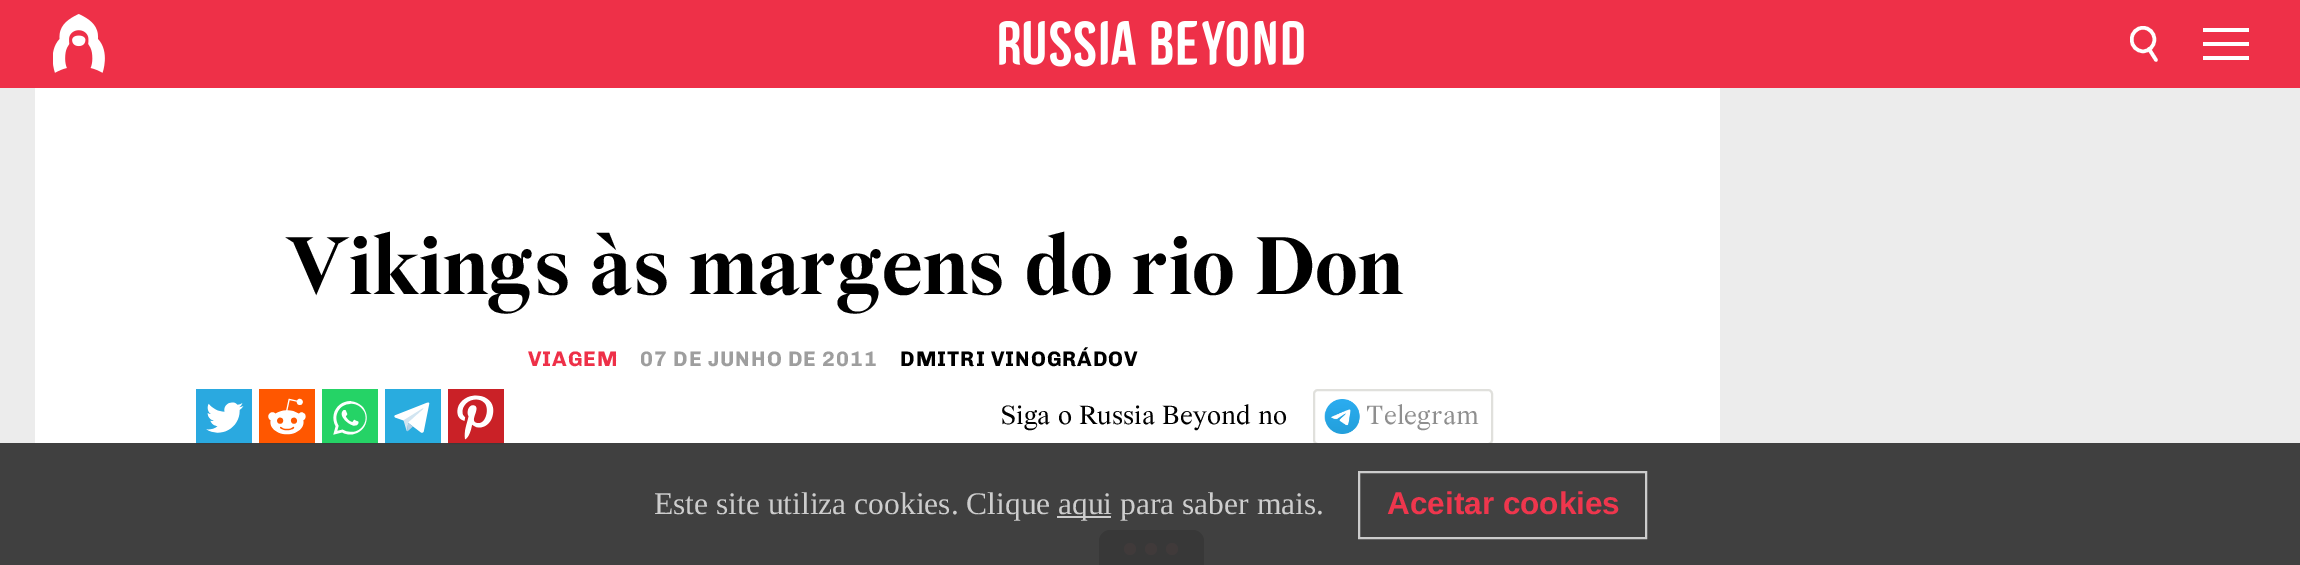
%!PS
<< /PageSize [2300 565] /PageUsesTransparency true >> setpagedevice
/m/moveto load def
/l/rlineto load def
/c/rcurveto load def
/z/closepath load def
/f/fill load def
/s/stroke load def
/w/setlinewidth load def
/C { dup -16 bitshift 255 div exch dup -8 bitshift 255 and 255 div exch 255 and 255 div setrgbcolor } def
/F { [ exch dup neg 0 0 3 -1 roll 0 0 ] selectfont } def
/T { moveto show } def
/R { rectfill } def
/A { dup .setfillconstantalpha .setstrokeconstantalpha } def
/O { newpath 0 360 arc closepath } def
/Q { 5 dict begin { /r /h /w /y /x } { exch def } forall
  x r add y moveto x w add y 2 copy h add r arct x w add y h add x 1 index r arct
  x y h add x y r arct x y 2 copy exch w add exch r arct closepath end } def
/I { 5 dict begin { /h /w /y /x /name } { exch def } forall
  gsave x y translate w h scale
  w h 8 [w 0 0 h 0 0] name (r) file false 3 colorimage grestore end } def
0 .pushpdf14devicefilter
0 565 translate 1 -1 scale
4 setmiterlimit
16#ECECEC C
0 0 2300 565 R
16#EE3048 C
0 0 2300 88 R
(1.rgb) 53 14 52 59 I
(2.rgb) 999 21 305 46 I
16#FFFFFF C
3.5 w
2131.75 27.75 22.5 23.5 11.25 Q s
1 setlinecap
2149 49 m 7 11 l s
2203 28 m 46 0 l 0 4 l -46 0 l z 2203 42 m 46 0 l 0 4 l -46 0 l z 2203 56 m 46 0 l 0 4 l -46 0 l z eofill
35 88 1685 477 R
/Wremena-Bold 87.5 F
16#000000 C
(Vikings às margens do rio Don) 285 294 T
/Chivo-Bold 21 F
16#EE3048 C
528 366 m 1 0 (VIAGEM) ashow
16#9E9E9E C
640 366 m 1 0 (07 DE JUNHO DE 2011) ashow
16#000000 C
900 366 m 1 0 (DMITRI VINOGRÁDOV) ashow
(3.rgb) 196 389 56 56 I
(4.rgb) 259 389 56 56 I
(5.rgb) 322 389 56 56 I
(6.rgb) 385 389 56 56 I
(7.rgb) 448 389 56 56 I
/Wremena-Regular 28 F
(Siga o Russia Beyond no) 1001 424 T
(8.rgb) 1324 399 36 35 I
16#E0E0DC C
2 w
0 setlinecap
1314 390 178 54 4 Q s
16#8F8F8F C
(Telegram) 1366 424 T
16#000000 C
1110 530 m 83 0 l 6 0 11 5 11 11 c 0 24 l -105 0 l 0 -24 l 0 -6 5 -11 11 -11 c z f
16#EE3048 C
1130 549 6 O f
1151 549 6 O f
1172 549 6 O f
0.97 A
16#3A3A3A C
0 443 2300 122 R
/LiberationSerif-Regular 31.5 F
1 A
16#CDCDCD C
(Este site utiliza cookies. Clique) 654 514 T
0.97 A
16#D1D1D1 C
1057 516 54 2 R
1 A
16#CDCDCD C
(aqui para saber mais.) 1058 514 T
0.97 A
16#D1D1D1 C
1359 472 287 66 rectstroke
/LiberationSans-Bold 31.5 F
1 A
16#EF364D C
(Aceitar cookies) 1387 514 T
.poppdf14devicefilter showpage
